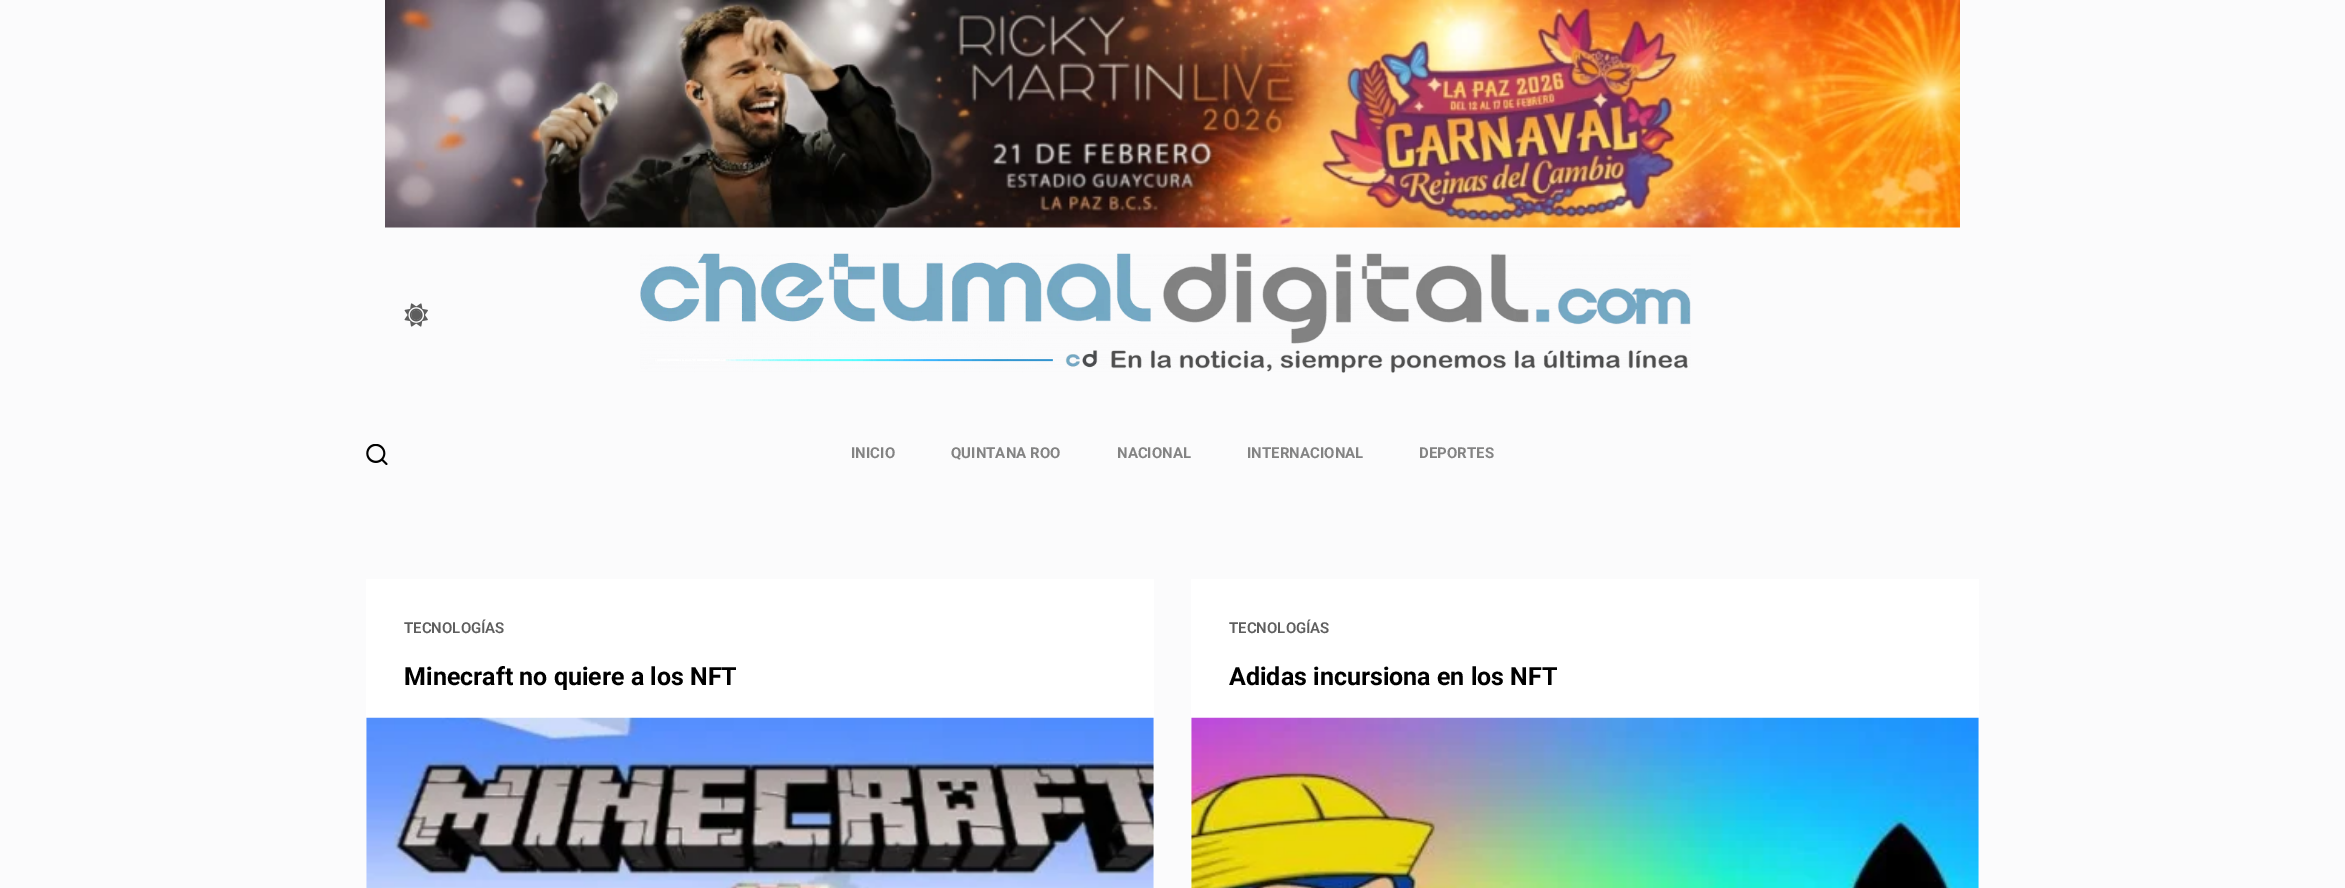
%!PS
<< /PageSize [2345 888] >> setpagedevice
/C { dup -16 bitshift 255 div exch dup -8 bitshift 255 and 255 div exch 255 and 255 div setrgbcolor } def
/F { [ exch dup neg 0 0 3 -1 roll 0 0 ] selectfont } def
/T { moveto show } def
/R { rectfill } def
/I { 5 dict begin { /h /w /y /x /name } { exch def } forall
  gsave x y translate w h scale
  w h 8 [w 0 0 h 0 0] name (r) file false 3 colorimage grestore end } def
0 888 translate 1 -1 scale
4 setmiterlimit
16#FBFBFC C
0 0 2345 888 R
(1.rgb) 385 0 1575 228 I
(2.rgb) 404 303 24 24 I
(3.rgb) 640 253 1051 120 I
(4.rgb) 366 444 22 21 I
/Roboto-Bold 15 F
16#838383 C
(INICIO) 851 458 T
(QUINTANA ROO) 951 458 T
(NACIONAL) 1117 458 T
(INTERNACIONAL) 1247 458 T
(DEPORTES) 1419 458 T
16#FFFFFF C
366 579 788 309 R
/Roboto-SemiBold 15 F
16#5E5E5E C
(TECNOLOGÍAS) 404 633 T
/Roboto-Bold 25 F
16#000000 C
(Minecraft no quiere a los NFT) 404 685 T
(5.rgb) 366 717 788 171 I
16#FFFFFF C
1191 579 788 309 R
/Roboto-SemiBold 15 F
16#5E5E5E C
(TECNOLOGÍAS) 1229 633 T
/Roboto-Bold 25 F
16#000000 C
(Adidas incursiona en los NFT) 1229 685 T
(6.rgb) 1191 717 788 171 I
showpage
